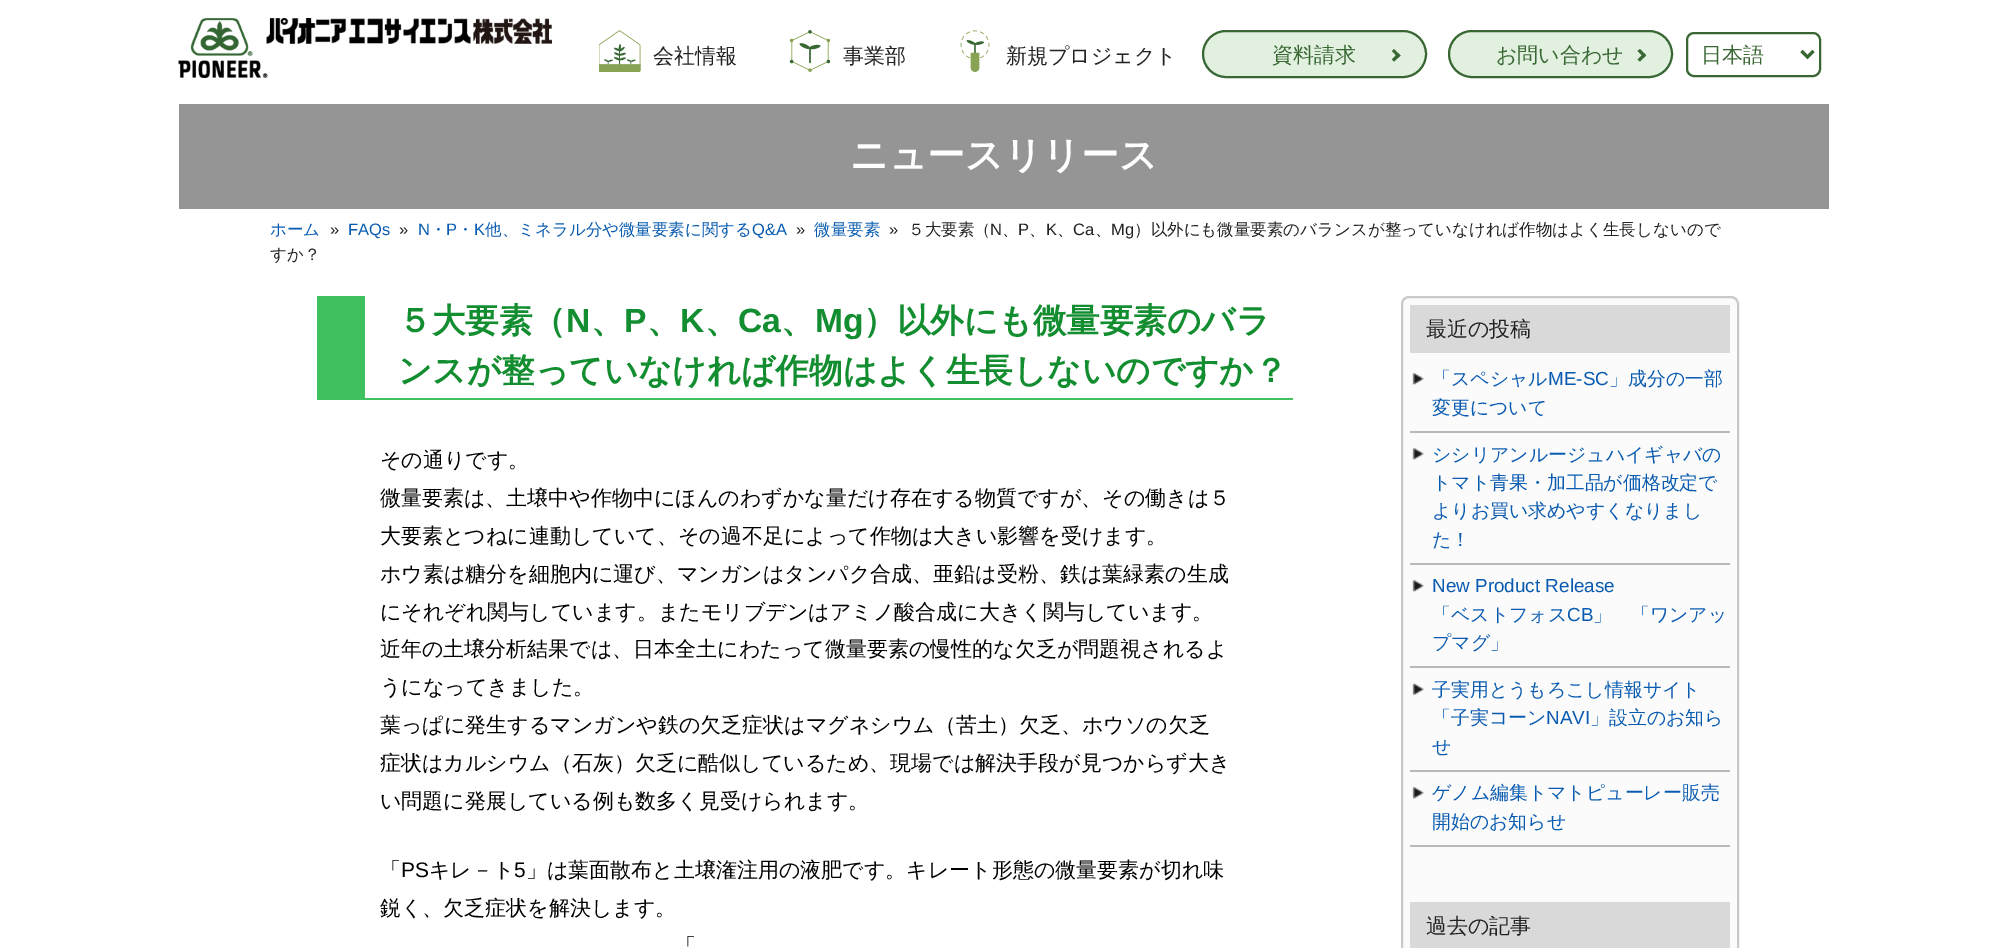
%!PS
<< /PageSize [2006 948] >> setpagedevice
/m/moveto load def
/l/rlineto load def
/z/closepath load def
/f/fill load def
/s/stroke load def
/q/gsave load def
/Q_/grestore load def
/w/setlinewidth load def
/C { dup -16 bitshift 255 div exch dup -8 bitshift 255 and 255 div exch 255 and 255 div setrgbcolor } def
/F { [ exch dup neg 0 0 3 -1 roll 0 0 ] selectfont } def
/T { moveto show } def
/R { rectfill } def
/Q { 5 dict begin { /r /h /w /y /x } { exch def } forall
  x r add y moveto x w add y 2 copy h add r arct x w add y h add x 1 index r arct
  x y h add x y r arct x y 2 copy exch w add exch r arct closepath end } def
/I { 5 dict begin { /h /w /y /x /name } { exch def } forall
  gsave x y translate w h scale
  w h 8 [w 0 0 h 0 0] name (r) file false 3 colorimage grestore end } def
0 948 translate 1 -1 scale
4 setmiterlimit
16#FFFFFF C
0 0 2006 948 R
(1.rgb) 178 18 374 60 I
(2.rgb) 599 30 42 42 I
/WenQuanYiZenHei-Medium 21 F
16#222222 C
(会社情報) 653 63 T
(3.rgb) 789 30 42 42 I
(事業部) 843 63 T
(4.rgb) 960 30 30 42 I
(新規プロジェクト) 1006 63 T
16#E2F0E0 C
1203 31 223 46 23 Q q f Q_
16#386733 C
2 w
s
(資料請求) 1272 62 T
1394 49 m 6.5 6.5 l -2.5 2 l -6 -6.5 l z f
1398 53 m 2.5 2.5 l -6.5 6 l -2 -2 l z f
16#E2F0E0 C
1449 31 223 46 23 Q q f Q_
16#386733 C
s
(お問い合わせ) 1496 62 T
1640 49 m 6 6.5 l -2 2 l -6.5 -6.5 l z f
1644 53 m 2 2.5 l -6 6 l -2.5 -2 l z f
1687 33 133 43 7 Q s
3 w
1801.5 51 m 6 6 l 6 -6 l s
(日本語) 1701 62 T
16#959595 C
179 104 1650 105 R
/WenQuanYiZenHei-Bold 37.75 F
16#FFFFFF C
(ニュースリリース) 850 168 T
/WenQuanYiZenHei-Medium 16.5 F
16#085BB0 C
(ホーム) 270 235 T
/LiberationSans-Regular 16.5 F
16#222222 C
(») 330 235 T
16#085BB0 C
(FAQs) 348 235 T
16#222222 C
(») 399 235 T
16#085BB0 C
(N) 418 235 T
/WenQuanYiZenHei-Medium 16.5 F
(・) 430 235 T
/LiberationSans-Regular 16.5 F
(P) 446 235 T
/WenQuanYiZenHei-Medium 16.5 F
(・) 457 235 T
/LiberationSans-Regular 16.5 F
(K) 474 235 T
/WenQuanYiZenHei-Medium 16.5 F
(他、ミネラル分や微量要素に関する) 485 235 T
/LiberationSans-Regular 16.5 F
(Q&A) 752 235 T
16#222222 C
(») 796 235 T
/WenQuanYiZenHei-Medium 16.5 F
16#085BB0 C
(微量要素) 814 235 T
/LiberationSans-Regular 16.5 F
16#222222 C
(») 889 235 T
/WenQuanYiZenHei-Medium 16.5 F
(５大要素（) 908 235 T
/LiberationSans-Regular 16.5 F
(N) 990 235 T
(P) 1018 235 T
(K) 1046 235 T
(Ca) 1073 235 T
(Mg) 1111 235 T
/WenQuanYiZenHei-Medium 16.5 F
(）以外にも微量要素のバランスが整っていなければ作物はよく生長しないので) 1134 235 T
(、) 1002 235 T
(、) 1029 235 T
(、) 1057 235 T
(、) 1095 235 T
(すか？) 270 260 T
16#40C15F C
317 398 976 2 R
317 296 48 102 R
/WenQuanYiZenHei-Bold 33.6 F
16#128D2F C
(５大要素（) 398 332 T
/LiberationSans-Bold 33.6 F
(N) 566 332 T
/WenQuanYiZenHei-Bold 33.6 F
(、) 591 332 T
/LiberationSans-Bold 33.6 F
(P) 624 332 T
/WenQuanYiZenHei-Bold 33.6 F
(、) 647 332 T
/LiberationSans-Bold 33.6 F
(K) 680 332 T
/WenQuanYiZenHei-Bold 33.6 F
(、) 705 332 T
/LiberationSans-Bold 33.6 F
(Ca) 738 332 T
/WenQuanYiZenHei-Bold 33.6 F
(、) 781 332 T
/LiberationSans-Bold 33.6 F
(Mg) 815 332 T
/WenQuanYiZenHei-Bold 33.6 F
(）以外にも微量要素のバラ) 863 332 T
(ンスが整っていなければ作物はよく生長しないのですか？) 398 382 T
/WenQuanYiZenHei-Medium 21 F
16#000000 C
(その通りです。) 380 467 T
(微量要素は、土壌中や作物中にほんのわずかな量だけ存在する物質ですが、その働きは５) 380 505 T
(大要素とつねに連動していて、その過不足によって作物は大きい影響を受けます。) 380 543 T
(ホウ素は糖分を細胞内に運び、マンガンはタンパク合成、亜鉛は受粉、鉄は葉緑素の生成) 380 581 T
(にそれぞれ関与しています。またモリブデンはアミノ酸合成に大きく関与しています。) 380 619 T
(近年の土壌分析結果では、日本全土にわたって微量要素の慢性的な欠乏が問題視されるよ) 380 656 T
(うになってきました。) 380 694 T
(葉っぱに発生するマンガンや鉄の欠乏症状はマグネシウム（苦土）欠乏、ホウソの欠乏) 380 732 T
(症状はカルシウム（石灰）欠乏に酷似しているため、現場では解決手段が見つからず大き) 380 770 T
(い問題に発展している例も数多く見受けられます。) 380 808 T
(「) 380 877 T
/LiberationSans-Regular 21 F
(PS) 401 877 T
/WenQuanYiZenHei-Medium 21 F
(キレ－ト) 429 877 T
/LiberationSans-Regular 21 F
(5) 514 877 T
/WenQuanYiZenHei-Medium 21 F
(」は葉面散布と土壌潅注用の液肥です。キレート形態の微量要素が切れ味) 526 877 T
(鋭く、欠乏症状を解決します。) 380 915 T
(「) 675 953 T
16#FCFBFC C
1402 297 336 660 7 Q q f Q_
16#C9C9C9 C
2 w
s
16#D9D9D9 C
1410 305 320 48 R
16#222222 C
(最近の投稿) 1426 336 T
16#B9B9B9 C
1410 431 320 2 R
(5.rgb) 1412 372 12 13 I
/WenQuanYiZenHei-Medium 18.9 F
16#085BB0 C
(「スペシャル) 1432 385 T
/LiberationSans-Regular 18.9 F
(ME-SC) 1548 385 T
/WenQuanYiZenHei-Medium 18.9 F
(」成分の一部) 1609 385 T
(変更について) 1432 414 T
16#B9B9B9 C
1410 563 320 2 R
(5.rgb) 1412 447 12 13 I
16#085BB0 C
(シシリアンルージュハイギャバの) 1432 461 T
(トマト青果・加工品が価格改定で) 1432 489 T
(よりお買い求めやすくなりまし) 1432 517 T
(た！) 1432 546 T
16#B9B9B9 C
1410 666 320 2 R
(5.rgb) 1412 579 12 13 I
/LiberationSans-Regular 18.9 F
16#085BB0 C
(New Product Release) 1432 592 T
/WenQuanYiZenHei-Medium 18.9 F
(「ベストフォス) 1432 621 T
/LiberationSans-Regular 18.9 F
(CB) 1567 621 T
/WenQuanYiZenHei-Medium 18.9 F
(」　「ワンアッ) 1593 621 T
(プマグ」) 1432 649 T
16#B9B9B9 C
1410 770 320 2 R
(6.rgb) 1412 683 12 13 I
16#085BB0 C
(子実用とうもろこし情報サイト) 1432 696 T
(「子実コーン) 1432 724 T
/LiberationSans-Regular 18.9 F
(NAVI) 1546 724 T
/WenQuanYiZenHei-Medium 18.9 F
(」設立のお知ら) 1590 724 T
(せ) 1432 753 T
16#B9B9B9 C
1410 845 320 2 R
(5.rgb) 1412 786 12 13 I
16#085BB0 C
(ゲノム編集トマトピューレー販売) 1432 799 T
(開始のお知らせ) 1432 828 T
16#D9D9D9 C
1410 902 320 46 R
/WenQuanYiZenHei-Medium 21 F
16#222222 C
(過去の記事) 1426 933 T
showpage
